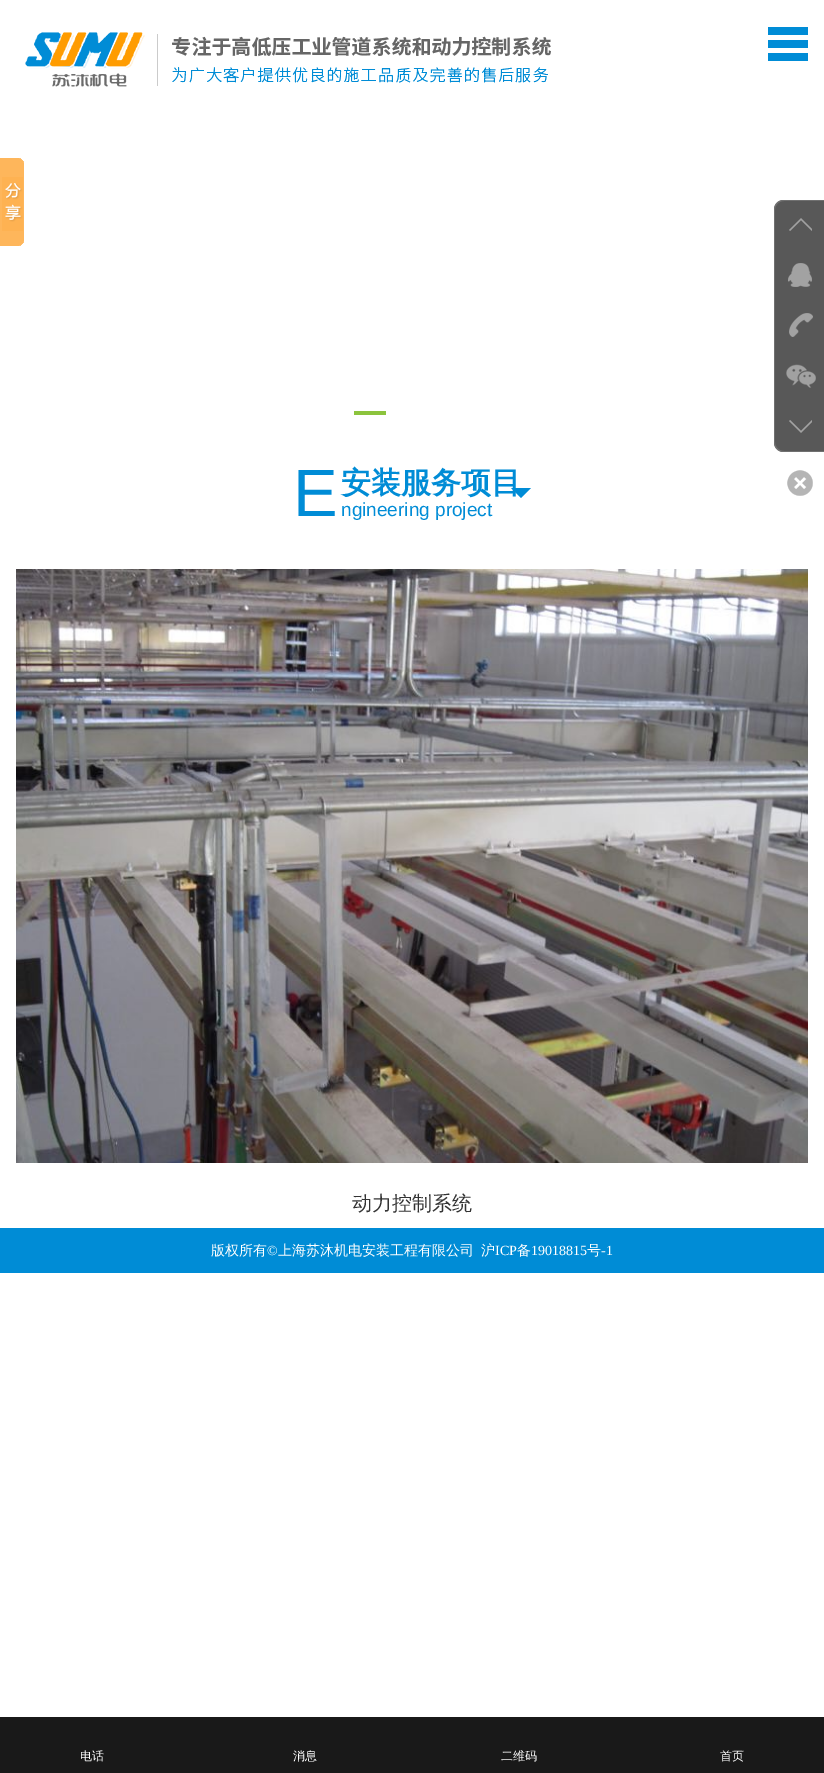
%!PS
<< /PageSize [824 1773] >> setpagedevice
/m/moveto load def
/l/rlineto load def
/c/rcurveto load def
/z/closepath load def
/f/fill load def
/C { dup -16 bitshift 255 div exch dup -8 bitshift 255 and 255 div exch 255 and 255 div setrgbcolor } def
/F { [ exch dup neg 0 0 3 -1 roll 0 0 ] selectfont } def
/T { moveto show } def
/R { rectfill } def
/I { 5 dict begin { /h /w /y /x /name } { exch def } forall
  gsave x y translate w h scale
  w h 8 [w 0 0 h 0 0] name (r) file false 3 colorimage grestore end } def
0 1773 translate 1 -1 scale
4 setmiterlimit
16#FFFFFF C
0 0 824 1773 R
(1.rgb) 0 158 24 88 I
(2.rgb) 25 32 526 55 I
(3.rgb) 768 27 40 34 I
16#8CC43D C
354 411 32 4 R
16#585858 C
784 200 m 40 0 l 0 252 l -40 0 l -5.5 0 -10 -4.5 -10 -10 c 0 -232 l 0 -5.5 4.5 -10 10 -10 c z f
16#707070 C
784 200 m 40 0 l 0 252 l -40 0 l -6 0 -10 -4 -10 -10 c 0 -232 l 0 -6 4 -10 10 -10 c z 784 201 m 40 0 l 0 250 l -40 0 l -5 0 -9 -4 -9 -9 c 0 -232 l 0 -5 4 -9 9 -9 c z eofill
(4.rgb) 789 218 23 13 I
(5.rgb) 788 263 24 24 I
(6.rgb) 789 313 24 24 I
(7.rgb) 786 364 30 24 I
(8.rgb) 789 420 23 13 I
(9.rgb) 787 470 26 26 I
/LiberationSans-Regular 67 F
16#008CD6 C
(E) 293 516 T
/WenQuanYiZenHei-Bold 30 F
(安装服务项目) 341 493 T
511 488 m 20 0 l -10 10 l z f
/LiberationSans-Regular 19 F
(ngineering project) 341 516 T
(10.rgb) 16 569 792 594 I
/WenQuanYiZenHei-Medium 20 F
16#333333 C
(动力控制系统) 352 1210 T
16#008CD6 C
0 1228 824 45 R
/WenQuanYiZenHei-Medium 14 F
16#FFFFFF C
(版权所有) 211 1255 T
/LiberationSerif-Regular 14 F
(©) 267 1255 T
/WenQuanYiZenHei-Medium 14 F
(上海苏沐机电安装工程有限公司) 278 1255 T
(沪) 481 1255 T
/LiberationSerif-Regular 14 F
(ICP) 495 1255 T
/WenQuanYiZenHei-Medium 14 F
(备) 517 1255 T
/LiberationSerif-Regular 14 F
(19018815) 531 1255 T
/WenQuanYiZenHei-Medium 14 F
(号) 587 1255 T
/LiberationSerif-Regular 14 F
(-1) 601 1255 T
16#191919 C
0 1717 824 56 R
/WenQuanYiZenHei-Medium 12 F
16#FFFFFF C
(电话) 80 1760 T
(消息) 293 1760 T
(二维码) 501 1760 T
(首页) 720 1760 T
showpage
